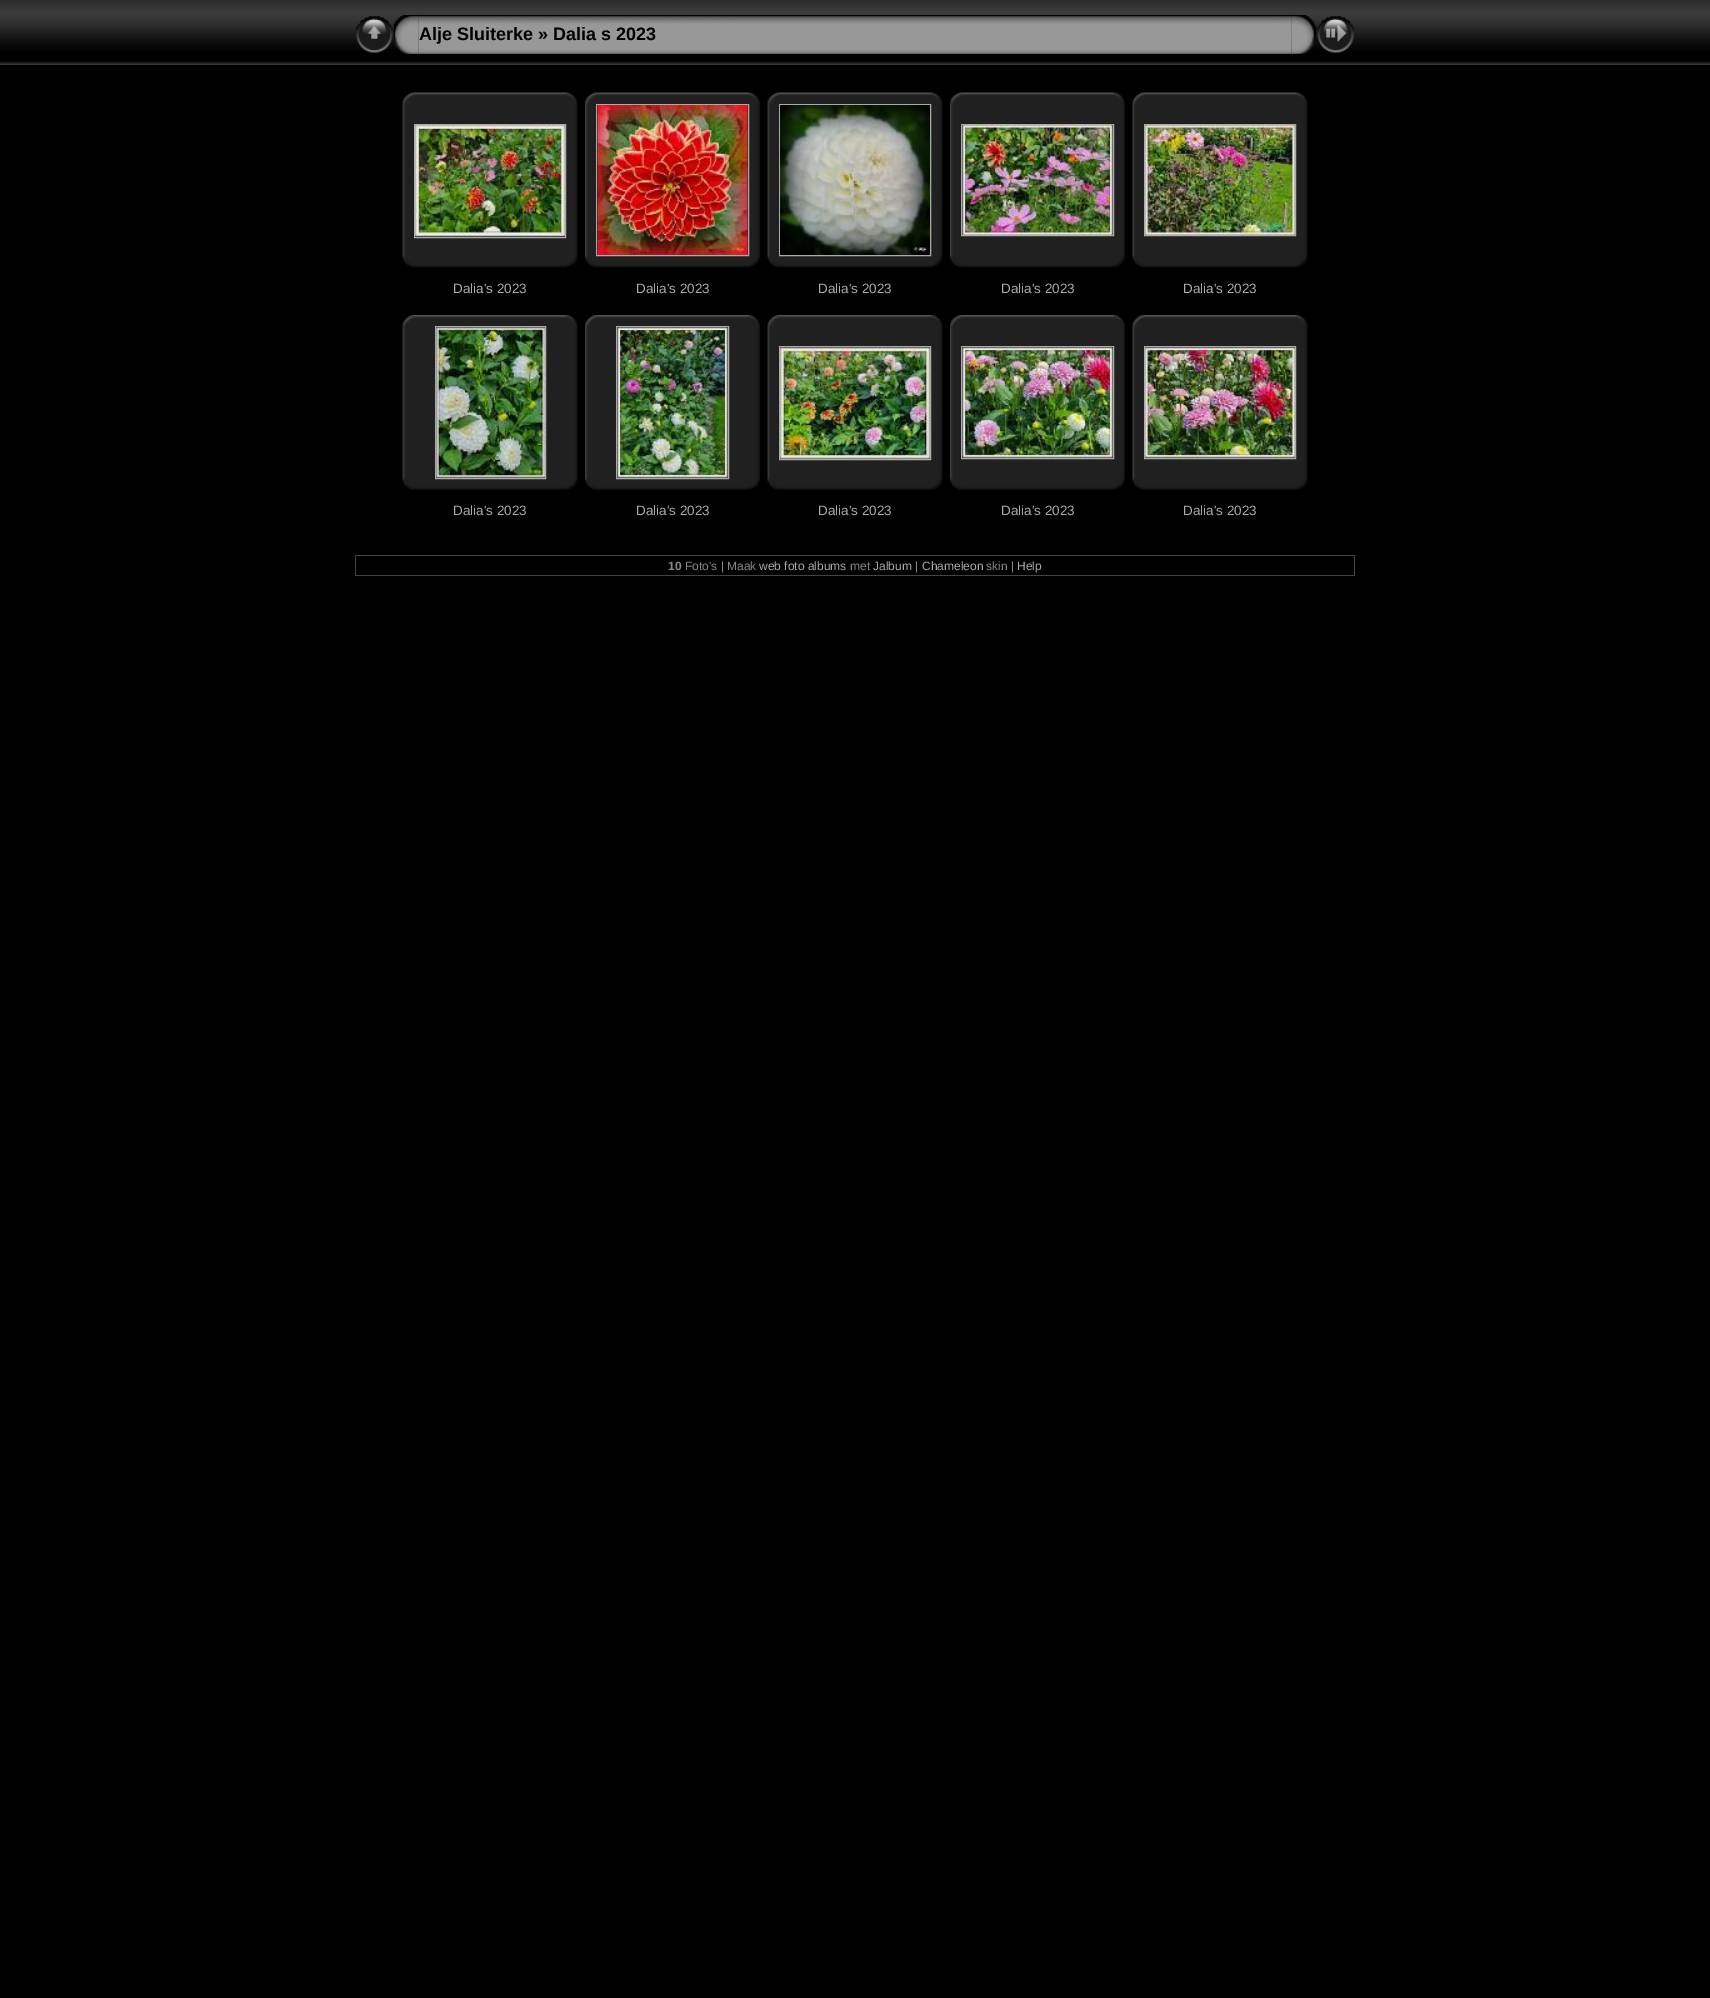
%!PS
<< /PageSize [1710 1998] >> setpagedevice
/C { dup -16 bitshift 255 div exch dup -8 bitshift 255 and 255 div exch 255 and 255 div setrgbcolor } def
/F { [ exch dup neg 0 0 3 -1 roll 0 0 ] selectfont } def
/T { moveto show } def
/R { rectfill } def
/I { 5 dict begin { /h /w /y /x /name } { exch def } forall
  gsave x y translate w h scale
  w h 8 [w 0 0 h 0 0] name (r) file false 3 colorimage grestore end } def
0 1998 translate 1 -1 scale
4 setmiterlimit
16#000000 C
0 0 1710 1998 R
(1.rgb) 0 0 1710 65 I
(2.rgb) 356 16 37 37 I
(4.rgb) 418 15 874 39 I
(3.rgb) 393 15 26 39 I
/LiberationSans-Bold 18 F
(Alje Sluiterke » Dalia s 2023) 419 40 T
(5.rgb) 1291 15 26 39 I
(6.rgb) 1317 16 37 37 I
(7.rgb) 402 92 176 176 I
16#AAAAAA C
414.5 124.5 151 113 rectstroke
(8.rgb) 415 125 150 112 I
/LiberationSans-Regular 13.5 F
(Dalia's 2023) 453 293 T
(9.rgb) 585 92 175 176 I
596.5 104.5 152 151 rectstroke
(10.rgb) 597 105 151 150 I
(Dalia's 2023) 636 293 T
(11.rgb) 767 92 176 176 I
779.5 104.5 151 151 rectstroke
(12.rgb) 780 105 150 150 I
(Dalia's 2023) 818 293 T
(9.rgb) 950 92 175 176 I
961.5 124.5 152 111 rectstroke
(13.rgb) 962 125 151 110 I
(Dalia's 2023) 1001 293 T
(7.rgb) 1132 92 176 176 I
1144.5 124.5 151 111 rectstroke
(14.rgb) 1145 125 150 110 I
(Dalia's 2023) 1183 293 T
(15.rgb) 402 315 176 175 I
435.5 326.5 110 152 rectstroke
(16.rgb) 436 327 109 151 I
(Dalia's 2023) 453 515 T
(17.rgb) 585 315 175 175 I
616.5 326.5 112 152 rectstroke
(18.rgb) 617 327 111 151 I
(Dalia's 2023) 636 515 T
(19.rgb) 767 315 176 175 I
779.5 346.5 151 113 rectstroke
(20.rgb) 780 347 150 112 I
(Dalia's 2023) 818 515 T
(17.rgb) 950 315 175 175 I
961.5 346.5 152 112 rectstroke
(21.rgb) 962 347 151 111 I
(Dalia's 2023) 1001 515 T
(15.rgb) 1132 315 176 175 I
1144.5 346.5 151 112 rectstroke
(22.rgb) 1145 347 150 111 I
(Dalia's 2023) 1183 515 T
16#444444 C
355 555 1000 1 R
1354 555 1 21 R
355 575 1000 1 R
355 555 1 21 R
/LiberationSans-Bold 12 F
16#888888 C
(10) 668 570 T
/LiberationSans-Regular 12 F
(Foto's | Maak) 685 570 T
16#AAAAAA C
(web foto albums) 759 570 T
16#888888 C
(met) 850 570 T
16#AAAAAA C
(Jalbum) 873 570 T
16#888888 C
(|) 915 570 T
16#AAAAAA C
(Chameleon) 922 570 T
16#888888 C
(skin |) 986 570 T
16#AAAAAA C
(Help) 1017 570 T
showpage
